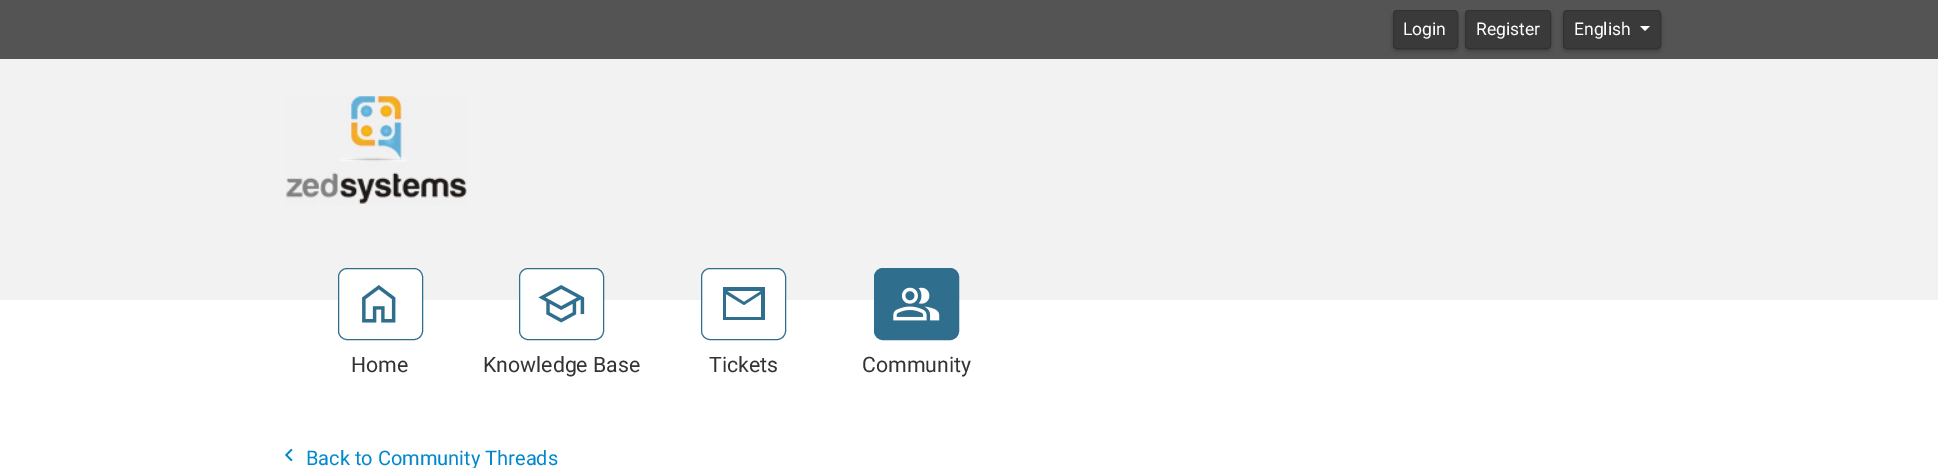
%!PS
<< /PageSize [1938 468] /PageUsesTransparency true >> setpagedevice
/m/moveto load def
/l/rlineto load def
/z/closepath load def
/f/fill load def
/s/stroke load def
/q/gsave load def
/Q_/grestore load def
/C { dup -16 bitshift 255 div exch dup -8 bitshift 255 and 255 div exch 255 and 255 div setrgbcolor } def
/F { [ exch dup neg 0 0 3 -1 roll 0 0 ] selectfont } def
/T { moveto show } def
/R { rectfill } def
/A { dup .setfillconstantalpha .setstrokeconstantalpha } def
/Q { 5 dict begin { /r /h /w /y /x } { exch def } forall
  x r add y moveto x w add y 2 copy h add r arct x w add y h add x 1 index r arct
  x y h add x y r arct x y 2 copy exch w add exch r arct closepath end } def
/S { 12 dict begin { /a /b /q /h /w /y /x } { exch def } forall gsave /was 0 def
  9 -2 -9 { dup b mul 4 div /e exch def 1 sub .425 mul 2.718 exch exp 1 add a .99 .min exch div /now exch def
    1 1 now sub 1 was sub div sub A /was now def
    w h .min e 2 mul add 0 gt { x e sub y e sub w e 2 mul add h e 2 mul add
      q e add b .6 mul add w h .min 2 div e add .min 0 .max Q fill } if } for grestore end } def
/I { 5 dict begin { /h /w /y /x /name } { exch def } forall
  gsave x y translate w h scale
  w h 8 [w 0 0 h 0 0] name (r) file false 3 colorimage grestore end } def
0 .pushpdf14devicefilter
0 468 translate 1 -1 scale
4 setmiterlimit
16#FFFFFF C
0 0 1938 468 R
16#545454 C
0 0 1938 59 R
16#000000 C
1393 13 65 38 4 2 .25 S
16#3A3A3A C
1393.5 10.5 64 38 3.5 Q q f Q_
16#323232 C
s
/Roboto-Regular 17.5 F
16#FFFFFF C
(Login) 1403 35 T
16#000000 C
1465 13 86 38 4 2 .25 S
16#3A3A3A C
1465.5 10.5 85 38 3.5 Q q f Q_
16#323232 C
s
16#FFFFFF C
(Register) 1476 35 T
16#000000 C
1563 13 98 38 4 2 .25 S
16#3A3A3A C
1563.5 10.5 97 38 3.5 Q q f Q_
16#323232 C
s
16#FFFFFF C
(English) 1574 35 T
1640 26 m 10 0 l -5 5 l z f
16#F2F2F2 C
0 59 1938 241 R
(1.rgb) 286 96 181 109 I
16#FFFFFF C
338.5 268.5 84 71 8.5 Q q f Q_
16#2F6E8D C
s
(2.rgb) 362 285 34 38 I
/Roboto-Regular 21.25 F
16#333333 C
(Home) 351 372 T
16#FFFFFF C
519.5 268.5 84 71 8.5 Q q f Q_
16#2F6E8D C
s
(3.rgb) 538 285 47 38 I
16#333333 C
(Knowledge Base) 483 372 T
16#FFFFFF C
701.5 268.5 84 71 8.5 Q q f Q_
16#2F6E8D C
s
723 320 m 0 -33 l 42 0 l 0 33 l z 744 305 m -18 -11 l 0 23 l 35 0 l 0 -23 l z 744 302 m 17 -11 l -34 0 l z 726 294 m 0 -3 l z f
16#333333 C
(Tickets) 709 372 T
16#2F6E8D C
874.5 268.5 84 71 8.5 Q q f Q_
s
(4.rgb) 893 287 47 34 I
16#333333 C
(Community) 862 372 T
(5.rgb) 285 448 8 14 I
/Roboto-Regular 20 F
16#0088CC C
(Back to Community Threads) 306 465 T
.poppdf14devicefilter showpage
